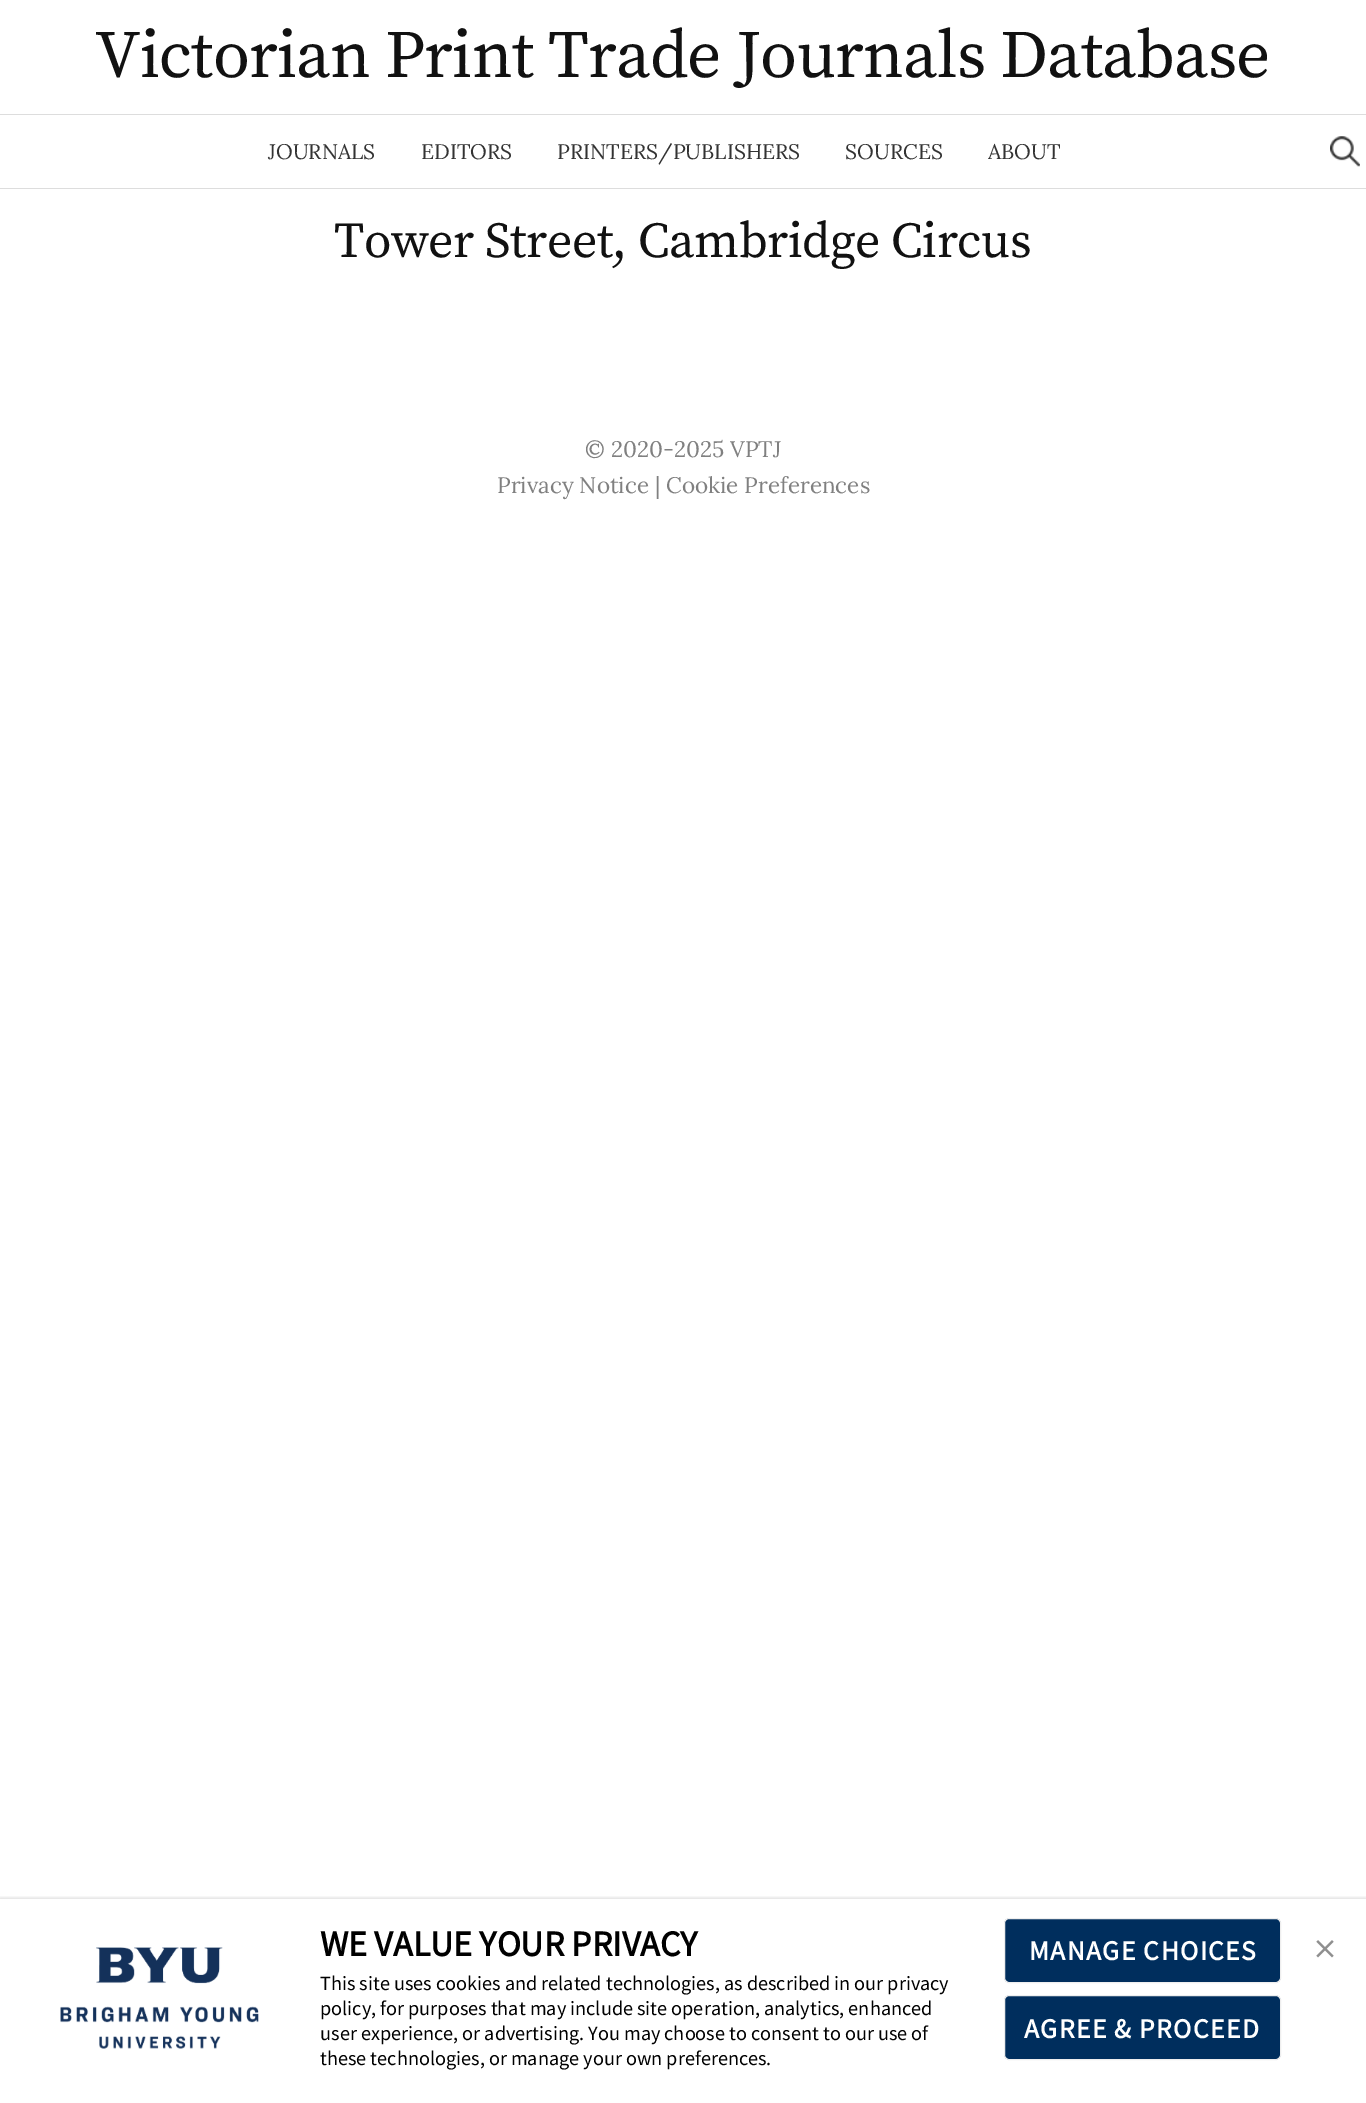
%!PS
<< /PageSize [1366 2103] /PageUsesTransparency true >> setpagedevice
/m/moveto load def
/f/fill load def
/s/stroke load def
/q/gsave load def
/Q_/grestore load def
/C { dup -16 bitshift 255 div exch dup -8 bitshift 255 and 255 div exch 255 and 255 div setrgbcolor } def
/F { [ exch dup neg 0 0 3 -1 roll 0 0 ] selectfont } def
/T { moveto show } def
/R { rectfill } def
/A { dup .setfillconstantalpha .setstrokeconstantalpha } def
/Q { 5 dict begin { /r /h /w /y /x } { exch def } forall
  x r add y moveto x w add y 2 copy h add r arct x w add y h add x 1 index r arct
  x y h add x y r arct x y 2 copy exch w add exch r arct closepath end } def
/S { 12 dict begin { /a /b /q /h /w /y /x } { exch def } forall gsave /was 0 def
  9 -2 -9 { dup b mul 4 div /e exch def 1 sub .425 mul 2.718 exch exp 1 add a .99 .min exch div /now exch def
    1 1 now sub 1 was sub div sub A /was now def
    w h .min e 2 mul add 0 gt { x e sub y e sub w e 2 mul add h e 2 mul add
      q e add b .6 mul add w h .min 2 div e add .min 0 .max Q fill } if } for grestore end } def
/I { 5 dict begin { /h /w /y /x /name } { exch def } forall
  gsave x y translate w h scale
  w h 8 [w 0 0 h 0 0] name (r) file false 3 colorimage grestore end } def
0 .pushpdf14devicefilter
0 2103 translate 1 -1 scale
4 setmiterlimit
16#FFFFFF C
0 0 1366 2103 R
/SourceSerifPro-Regular 67.5 F
16#111111 C
95 77 m -.7 0 (Victorian Print Trade Journals Database) ashow
16#DDDDDD C
0 114 1366 1 R
0 188 1366 1 R
/Lora-Regular 21.1 F
16#333333 C
(JOURNALS) 268 159 T
(EDITORS) 421 159 T
(PRINTERS/PUBLISHERS) 557 159 T
(SOURCES) 845 159 T
(ABOUT) 988 159 T
(1.rgb) 1330 136 30 31 I
/SourceSerifPro-Regular 50 F
16#111111 C
334 257 m -.5 0 (Tower Street, Cambridge Circus) ashow
/Lora-Regular 22.5 F
16#808080 C
(© 2020-2025 VPTJ) 585 457 T
(Privacy Notice | Cookie Preferences) 497 493 T
q
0 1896 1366 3 rectclip
16#000000 C
0 1899 1366 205 0 2.5 .2 S
Q_
/SourceSansPro-Bold 36 F
16#000000 C
(WE VALUE YOUR PRIVACY) 320 1956 T
/SourceSansPro-Regular 20.25 F
(This site uses cookies and related technologies, as described in our privacy) 320 1990 T
(policy, for purposes that may include site operation, analytics, enhanced) 320 2015 T
(user experience, or advertising. You may choose to consent to our use of) 320 2040 T
(these technologies, or manage your own preferences.) 320 2065 T
(2.rgb) 60 1947 199 102 I
(3.rgb) 1316 1940 18 18 I
16#002E5D C
1004.5 1918.5 276 64 4.5 Q q f Q_
16#EEEEEE C
s
/SourceSansPro-Bold 27.5 F
16#FFFFFF C
1029 1960 m 1.4 0 (MANAGE CHOICES) ashow
16#002E5D C
1004.5 1995.5 276 64 4.5 Q q f Q_
16#EEEEEE C
s
16#FFFFFF C
1024 2038 m 1.4 0 (AGREE & PROCEED) ashow
.poppdf14devicefilter showpage
